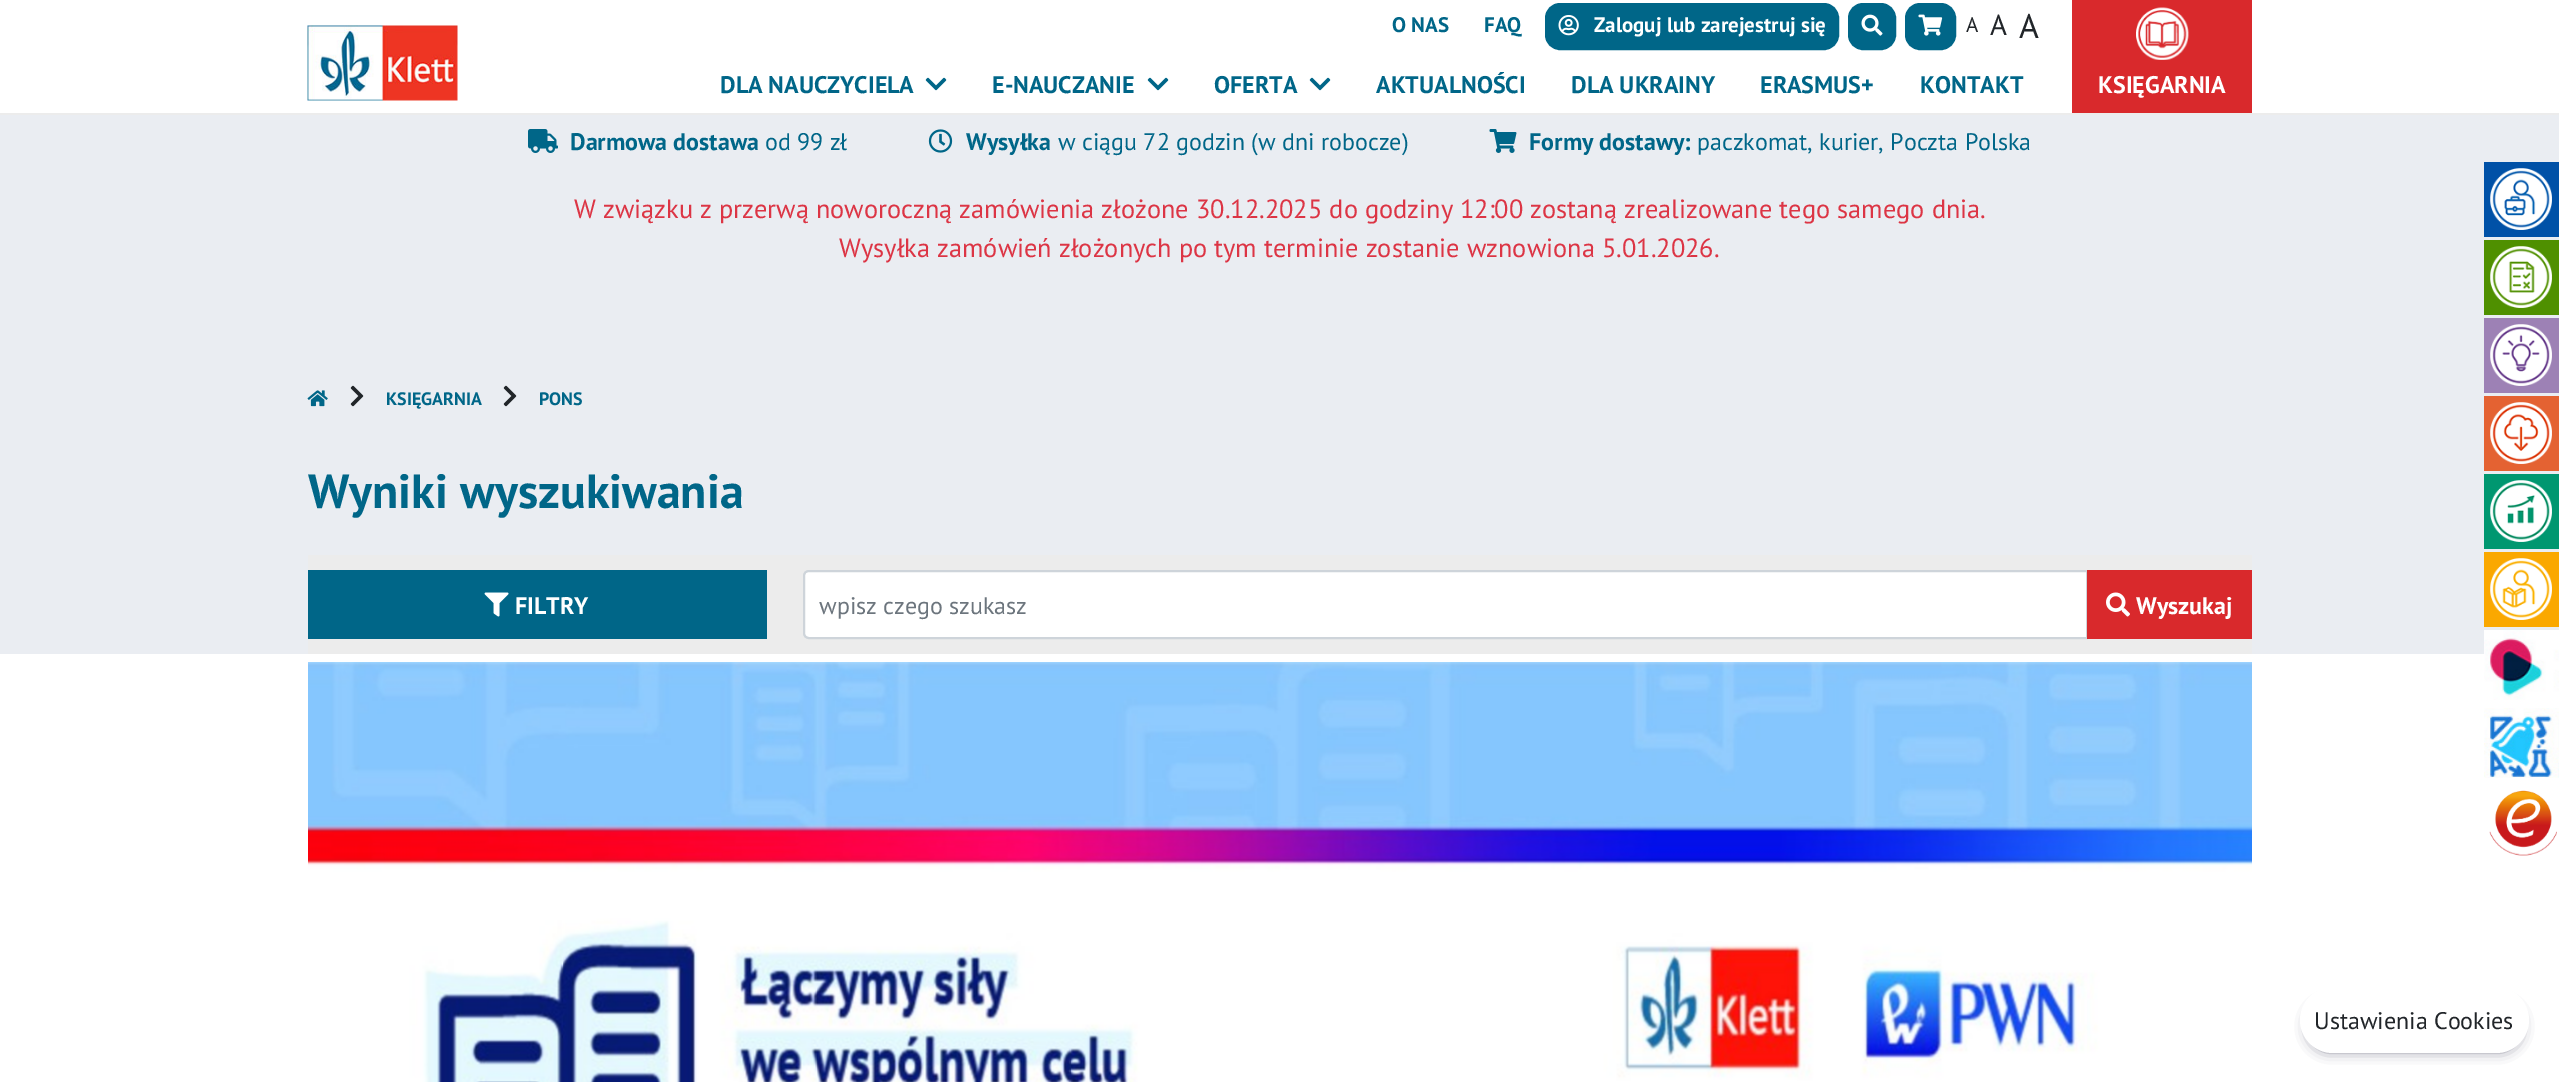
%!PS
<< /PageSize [2559 1082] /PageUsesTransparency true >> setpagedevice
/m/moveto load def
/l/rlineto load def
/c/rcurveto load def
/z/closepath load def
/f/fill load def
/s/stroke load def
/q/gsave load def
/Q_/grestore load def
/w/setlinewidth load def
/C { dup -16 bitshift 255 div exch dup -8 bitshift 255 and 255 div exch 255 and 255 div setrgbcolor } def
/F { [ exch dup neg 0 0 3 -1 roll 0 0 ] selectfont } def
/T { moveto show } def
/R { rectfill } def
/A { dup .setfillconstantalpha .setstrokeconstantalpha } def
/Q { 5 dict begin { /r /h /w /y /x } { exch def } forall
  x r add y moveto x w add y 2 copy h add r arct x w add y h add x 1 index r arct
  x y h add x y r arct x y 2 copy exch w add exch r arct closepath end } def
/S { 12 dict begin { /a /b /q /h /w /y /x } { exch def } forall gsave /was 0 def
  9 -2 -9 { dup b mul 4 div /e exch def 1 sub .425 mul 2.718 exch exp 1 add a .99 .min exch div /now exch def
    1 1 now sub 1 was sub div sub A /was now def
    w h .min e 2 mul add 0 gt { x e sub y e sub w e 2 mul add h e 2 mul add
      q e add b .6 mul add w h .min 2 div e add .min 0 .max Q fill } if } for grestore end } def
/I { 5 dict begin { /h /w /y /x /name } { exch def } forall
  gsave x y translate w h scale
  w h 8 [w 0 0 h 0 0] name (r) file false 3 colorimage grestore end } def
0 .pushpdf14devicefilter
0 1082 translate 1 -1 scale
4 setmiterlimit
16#FFFFFF C
0 0 2559 1082 R
/PTSans-Bold 21 F
16#006688 C
(O NAS) 1392 32 T
(FAQ) 1484 32 T
1546 4 292 45 14 Q q f Q_
2 w
s
(1.rgb) 1558 15 21 21 I
16#FFFFFF C
(Zaloguj lub zarejestruj się) 1594 32 T
16#006688 C
1849 4 46 45 14 Q q f Q_
s
(2.rgb) 1861 14 22 22 I
1906 4 49 45 14 Q q f Q_
s
(3.rgb) 1918 14 25 22 I
/PTSans-Regular 21 F
16#212529 C
(A) 1966 32 T
/PTSans-Regular 29 F
(A) 1990 35 T
/PTSans-Regular 34 F
(A) 2019 38 T
16#D9292C C
2072 0 180 113 R
(4.rgb) 2136 7 53 53 I
16#ECECEC C
0 113 2559 2 R
(5.rgb) 307 25 151 76 I
/PTSans-Bold 24 F
16#006688 C
(DLA NAUCZYCIELA) 720 93 T
(6.rgb) 925 77 22 14 I
(E-NAUCZANIE) 992 93 T
(6.rgb) 1147 77 22 14 I
(OFERTA) 1214 93 T
(6.rgb) 1309 77 22 14 I
(AKTUALNOŚCI) 1376 93 T
(DLA UKRAINY) 1571 93 T
(ERASMUS+) 1760 93 T
(KONTAKT) 1920 93 T
16#FFFFFF C
(KSIĘGARNIA) 2098 93 T
16#EAEDF2 C
0 115 2559 539 R
(7.rgb) 528 129 30 24 I
16#006688 C
(Darmowa dostawa) 570 150 T
/PTSans-Regular 24 F
(od 99 zł) 765 150 T
(8.rgb) 928 129 25 24 I
/PTSans-Bold 24 F
(Wysyłka) 966 150 T
/PTSans-Regular 24 F
(w ciągu 72 godzin \(w dni robocze\)) 1058 150 T
(9.rgb) 1489 129 28 24 I
/PTSans-Bold 24 F
(Formy dostawy:) 1529 150 T
/PTSans-Regular 24 F
(paczkomat, kurier, Poczta Polska) 1697 150 T
/PTSans-Regular 26.4 F
16#DC3545 C
(W związku z przerwą noworoczną zamówienia złożone 30.12.2025 do godziny 12:00 zostaną zrealizowane tego samego dnia.) 574 218 T
(Wysyłka zamówień złożonych po tym terminie zostanie wznowiona 5.01.2026.) 839 257 T
(10.rgb) 307 390 21 17 I
(11.rgb) 350 385 14 22 I
/PTSans-Bold 18 F
16#006688 C
(KSIĘGARNIA) 386 405 T
(11.rgb) 503 385 14 22 I
(PONS) 539 405 T
/PTSans-Bold 48 F
(Wyniki wyszukiwania) 308 508 T
16#ECECEC C
308 555 1944 99 R
16#006688 C
308 570 459 69 R
(12.rgb) 484 592 25 25 I
/PTSans-Bold 24 F
16#FFFFFF C
(FILTRY) 515 614 T
809 571 m 1278 0 l 0 67 l -1278 0 l -3 0 -5 -2 -5 -5 c 0 -57 l 0 -3 2 -5 5 -5 c z q f Q_
16#CED4DA C
s
/PTSans-Regular 24 F
16#6C757D C
(wpisz czego szukasz) 819 614 T
16#D9292C C
2087 570 165 69 R
(13.rgb) 2106 592 24 25 I
/PTSans-Bold 24 F
16#FFFFFF C
(Wyszukaj) 2136 614 T
(14.rgb) 2484 162 75 75 I
(15.rgb) 2484 240 75 75 I
(16.rgb) 2484 318 75 75 I
(17.rgb) 2484 396 75 75 I
(18.rgb) 2484 474 75 75 I
(19.rgb) 2484 552 75 75 I
(20.rgb) 2484 630 75 70 I
(21.rgb) 2484 708 75 70 I
(22.rgb) 2489 790 68 66 I
(23.rgb) 308 662 1944 420 I
16#42445A C
2310 1004 209 45 22.5 7 1 S
16#FFFFFF C
2300 987 229 66 33 Q f
/PTSans-Regular 24 F
16#212529 C
(Ustawienia Cookies) 2314 1029 T
.poppdf14devicefilter showpage
